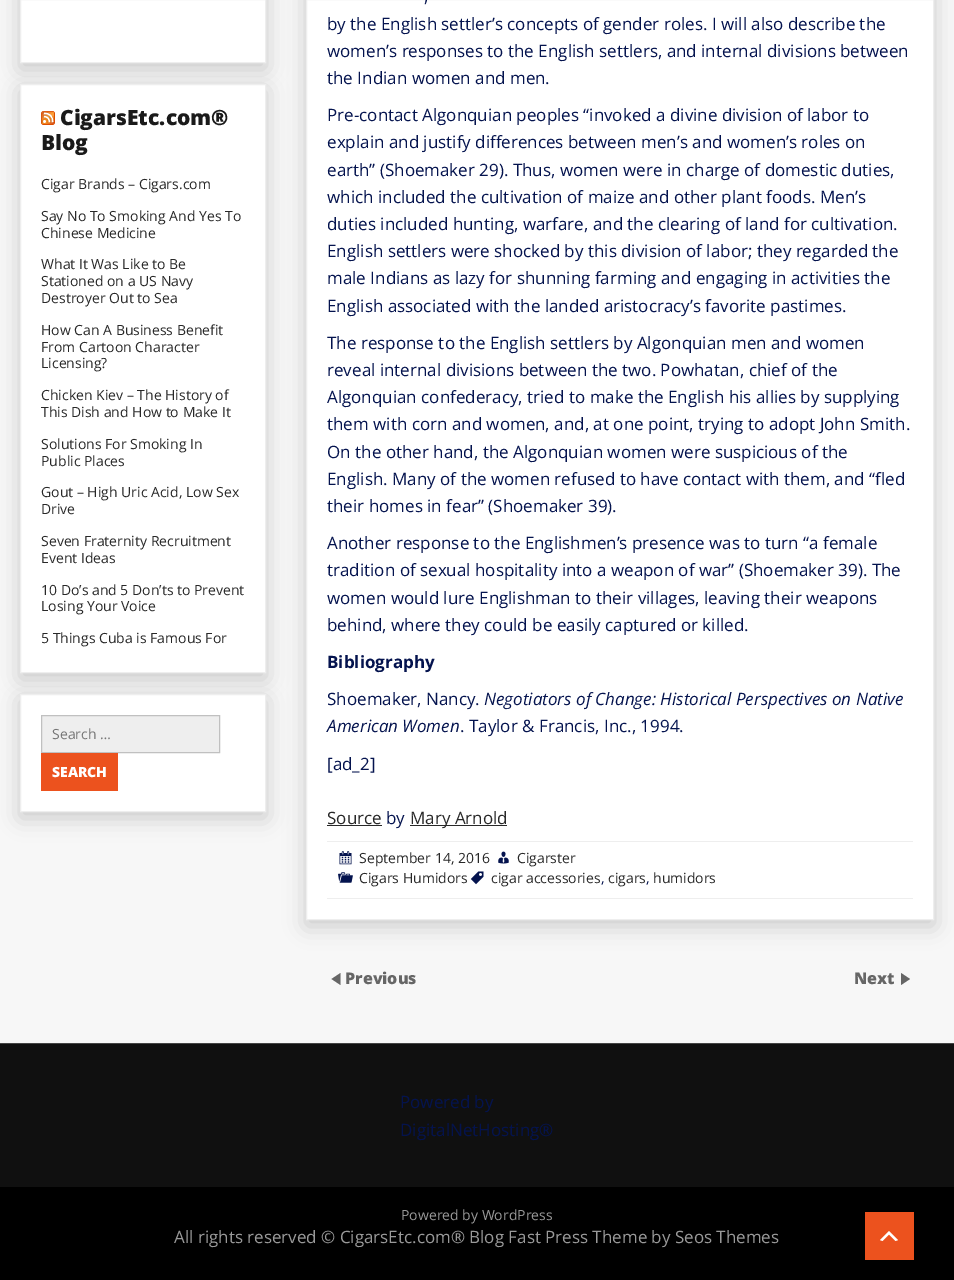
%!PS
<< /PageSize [954 1280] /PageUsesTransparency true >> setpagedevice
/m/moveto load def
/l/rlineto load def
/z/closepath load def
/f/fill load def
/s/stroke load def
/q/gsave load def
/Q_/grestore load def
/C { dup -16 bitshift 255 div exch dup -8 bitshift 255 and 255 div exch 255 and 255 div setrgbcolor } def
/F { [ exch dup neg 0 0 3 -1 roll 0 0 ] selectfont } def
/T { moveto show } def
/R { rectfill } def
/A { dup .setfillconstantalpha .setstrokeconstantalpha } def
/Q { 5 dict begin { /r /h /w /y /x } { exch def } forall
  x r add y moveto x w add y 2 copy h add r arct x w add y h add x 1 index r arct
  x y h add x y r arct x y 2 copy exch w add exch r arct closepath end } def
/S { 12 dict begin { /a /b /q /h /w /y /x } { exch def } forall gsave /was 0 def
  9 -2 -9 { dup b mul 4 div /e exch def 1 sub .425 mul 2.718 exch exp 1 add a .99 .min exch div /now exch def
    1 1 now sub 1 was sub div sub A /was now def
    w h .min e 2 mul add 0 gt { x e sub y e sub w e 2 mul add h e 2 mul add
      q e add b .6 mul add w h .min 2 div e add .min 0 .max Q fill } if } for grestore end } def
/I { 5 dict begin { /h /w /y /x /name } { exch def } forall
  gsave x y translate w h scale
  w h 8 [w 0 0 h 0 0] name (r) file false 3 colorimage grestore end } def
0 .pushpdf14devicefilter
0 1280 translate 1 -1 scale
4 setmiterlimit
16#F7F7F7 C
0 0 954 1280 R
16#000000 C
20 -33 246 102 0 11 .18 S
16#FFFFFF C
20.5 -.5 m 245 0 l 0 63 l -245 0 l z q f Q_
16#EEEEEE C
s
16#000000 C
20 90 246 589 0 11 .18 S
16#FFFFFF C
20.5 84.5 m 245 0 l 0 588 l -245 0 l z q f Q_
16#EEEEEE C
s
(1.rgb) 41 111 14 14 I
/OpenSans-ExtraBold 21 F
16#1A1A1A C
(CigarsEtc.com®) 60 125 T
(Blog) 41 150 T
/OpenSans-Regular 14 F
16#282828 C
(Cigar Brands – Cigars.com) 41 189 T
(Say No To Smoking And Yes To) 41 221 T
(Chinese Medicine) 41 238 T
(What It Was Like to Be) 41 269 T
(Stationed on a US Navy) 41 286 T
(Destroyer Out to Sea) 41 303 T
(How Can A Business Benefit) 41 335 T
(From Cartoon Character) 41 352 T
(Licensing?) 41 368 T
(Chicken Kiev – The History of) 41 400 T
(This Dish and How to Make It) 41 417 T
(Solutions For Smoking In) 41 449 T
(Public Places) 41 466 T
(Gout – High Uric Acid, Low Sex) 41 497 T
(Drive) 41 514 T
(Seven Fraternity Recruitment) 41 546 T
(Event Ideas) 41 563 T
(10 Do’s and 5 Don’ts to Prevent) 41 595 T
(Losing Your Voice) 41 611 T
(5 Things Cuba is Famous For) 41 643 T
16#000000 C
20 700 246 118 0 11 .18 S
16#FFFFFF C
20.5 694.5 m 245 0 l 0 117 l -245 0 l z q f Q_
16#EEEEEE C
s
41.5 715.5 m 178 0 l 0 37 l -178 0 l z q f Q_
16#C0C0C0 C
s
16#757575 C
(Search …) 52 739 T
16#EC521E C
41 753 77 38 R
/OpenSans-ExtraBold 14 F
16#FFFFFF C
(SEARCH) 52 777 T
16#000000 C
306 -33 628 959 0 11 .18 S
16#FFFFFF C
306.5 -.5 m 627 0 l 0 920 l -627 0 l z q f Q_
16#EEEEEE C
s
/OpenSans-Regular 17 F
16#04134E C
(,) 424 2 T
(by the English settler’s concepts of gender roles. I will also describe the) 327 30 T
(women’s responses to the English settlers, and internal divisions between) 327 57 T
(the Indian women and men.) 327 84 T
(Pre-contact Algonquian peoples “invoked a divine division of labor to) 327 121 T
(explain and justify differences between men’s and women’s roles on) 327 148 T
(earth” \(Shoemaker 29\). Thus, women were in charge of domestic duties,) 327 176 T
(which included the cultivation of maize and other plant foods. Men’s) 327 203 T
(duties included hunting, warfare, and the clearing of land for cultivation.) 327 230 T
(English settlers were shocked by this division of labor; they regarded the) 327 257 T
(male Indians as lazy for shunning farming and engaging in activities the) 327 284 T
(English associated with the landed aristocracy’s favorite pastimes.) 327 312 T
(The response to the English settlers by Algonquian men and women) 327 349 T
(reveal internal divisions between the two. Powhatan, chief of the) 327 376 T
(Algonquian confederacy, tried to make the English his allies by supplying) 327 403 T
(them with corn and women, and, at one point, trying to adopt John Smith.) 327 430 T
(On the other hand, the Algonquian women were suspicious of the) 327 458 T
(English. Many of the women refused to have contact with them, and “fled) 327 485 T
(their homes in fear” \(Shoemaker 39\).) 327 512 T
(Another response to the Englishmen’s presence was to turn “a female) 327 549 T
(tradition of sexual hospitality into a weapon of war” \(Shoemaker 39\). The) 327 576 T
(women would lure Englishman to their villages, leaving their weapons) 327 604 T
(behind, where they could be easily captured or killed.) 327 631 T
/OpenSans-Bold 17 F
(Bibliography) 327 668 T
/OpenSans-Regular 17 F
(Shoemaker, Nancy.) 327 705 T
/OpenSans-Italic 17 F
(Negotiators of Change: Historical Perspectives on Native) 484 705 T
(American Women) 327 732 T
/OpenSans-Regular 17 F
(. Taylor & Francis, Inc., 1994.) 460 732 T
([ad_2]) 327 770 T
16#282828 C
(Source) 327 824 T
327 825 55 1 R
16#04134E C
(by) 386 824 T
16#282828 C
410 825 97 1 R
(Mary Arnold) 410 824 T
16#EEEEEE C
327 841 586 1 R
327 898 586 1 R
(2.rgb) 339 851 13 14 I
/OpenSans-Regular 14 F
16#282828 C
(September 14, 2016) 359 863 T
(3.rgb) 498 851 11 13 I
(Cigarster) 517 863 T
(4.rgb) 338 872 15 11 I
(Cigars Humidors) 359 883 T
(5.rgb) 470 871 14 14 I
(cigar accessories) 491 883 T
16#04134E C
(,) 601 883 T
16#282828 C
(cigars) 608 883 T
16#04134E C
(,) 646 883 T
16#282828 C
(humidors) 653 883 T
16#666666 C
340.5 985 m -9 -6 l 9 -6 l z f
/OpenSans-ExtraBold 16 F
(Previous) 345 984 T
(Next) 854 984 T
901 973 m 9 6 l -9 6 l z f
16#101010 C
0 1044 954 143 R
16#444444 C
0 1043 954 1 R
/OpenSans-Regular 17 F
16#04134E C
(Powered by) 400 1108 T
(DigitalNetHosting®) 400 1136 T
16#000000 C
0 1187 954 93 R
/OpenSans-Regular 14 F
16#999999 C
(Powered by WordPress) 401 1220 T
/OpenSans-Regular 17 F
(All rights reserved © CigarsEtc.com® Blog Fast Press Theme by Seos Themes) 174 1243 T
16#EC521E C
865 1212 49 48 R
16#FFFFFF C
895.5 1241 m -6.5 -6.5 l -6.5 6.5 l -2.5 -1 l 9 -9 l 9 9 l z f
.poppdf14devicefilter showpage
